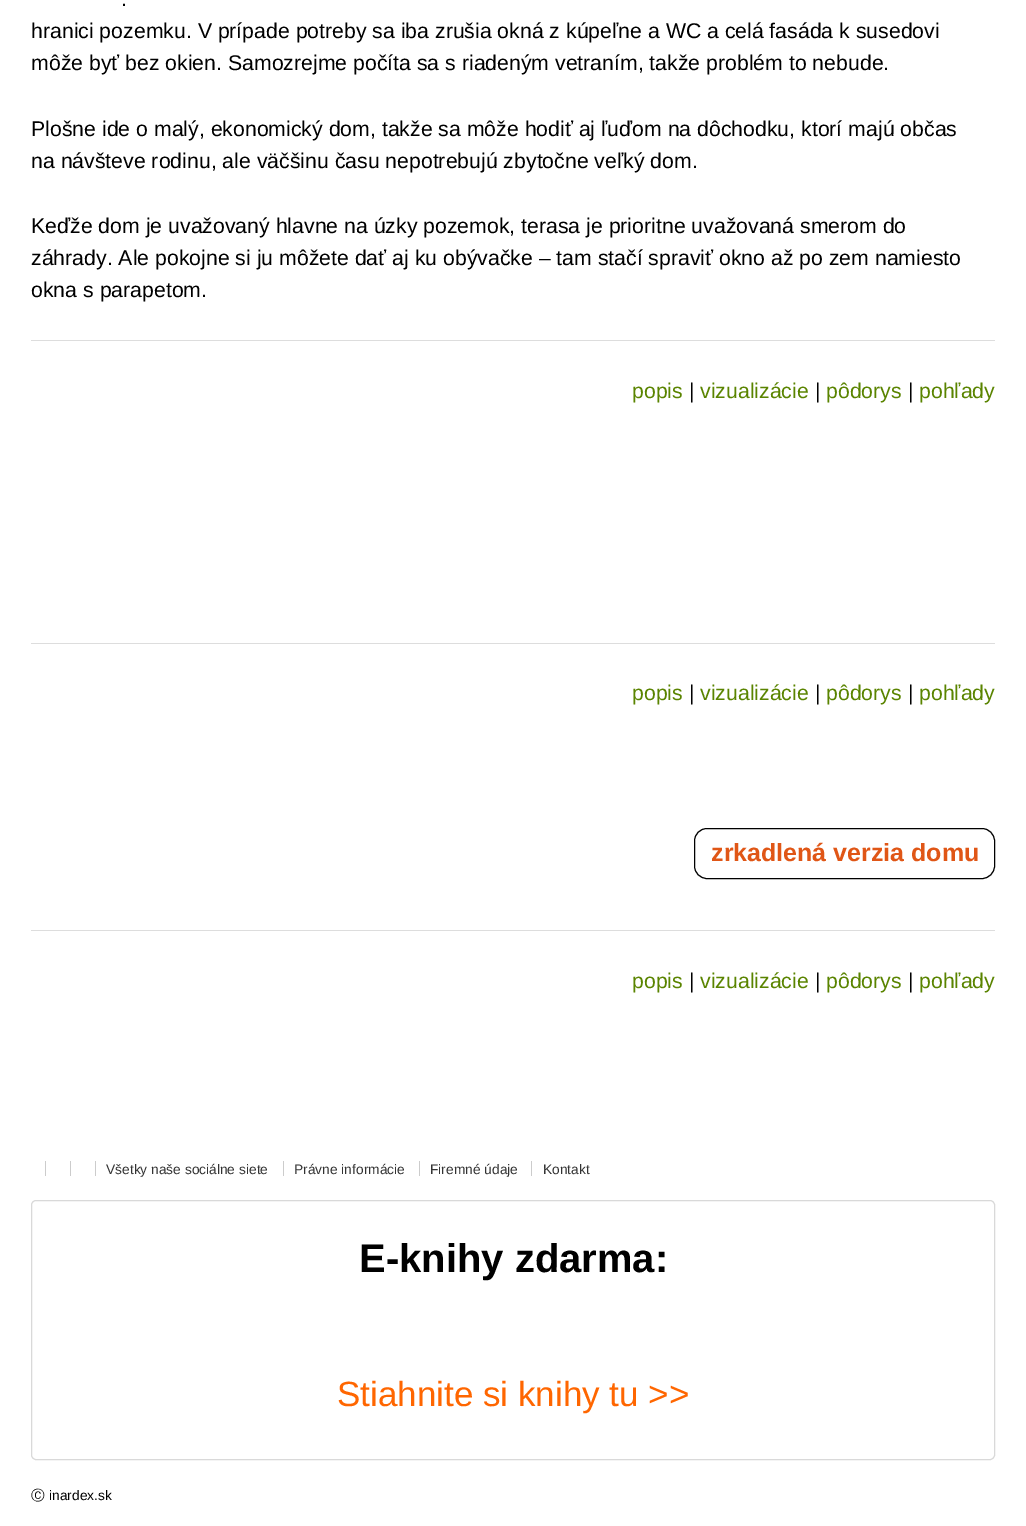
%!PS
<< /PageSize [1026 1526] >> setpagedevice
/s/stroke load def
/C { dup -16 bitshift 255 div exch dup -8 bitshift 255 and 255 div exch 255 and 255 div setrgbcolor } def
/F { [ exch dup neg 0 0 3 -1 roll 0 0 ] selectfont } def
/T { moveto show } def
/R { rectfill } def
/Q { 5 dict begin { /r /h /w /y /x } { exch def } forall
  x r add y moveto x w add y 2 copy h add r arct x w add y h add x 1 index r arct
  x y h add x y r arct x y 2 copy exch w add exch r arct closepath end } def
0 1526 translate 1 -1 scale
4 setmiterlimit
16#FFFFFF C
0 0 1026 1526 R
/LiberationSans-Regular 21.25 F
16#000000 C
(.) 121 6 T
(hranici pozemku. V prípade potreby sa iba zrušia okná z kúpeľne a WC a celá fasáda k susedovi) 31 38 T
(môže byť bez okien. Samozrejme počíta sa s riadeným vetraním, takže problém to nebude.) 31 70 T
(Plošne ide o malý, ekonomický dom, takže sa môže hodiť aj ľuďom na dôchodku, ktorí majú občas) 31 136 T
(na návšteve rodinu, ale väčšinu času nepotrebujú zbytočne veľký dom.) 31 168 T
(Keďže dom je uvažovaný hlavne na úzky pozemok, terasa je prioritne uvažovaná smerom do) 31 233 T
(záhrady. Ale pokojne si ju môžete dať aj ku obývačke – tam stačí spraviť okno až po zem namiesto) 31 265 T
(okna s parapetom.) 31 297 T
16#DDDDDD C
31 340 964 1 R
16#5A8400 C
(popis) 632 398 T
16#000000 C
(|) 689 398 T
16#5A8400 C
(vizualizácie) 700 398 T
16#000000 C
(|) 815 398 T
16#5A8400 C
(pôdorys) 826 398 T
16#000000 C
(|) 908 398 T
16#5A8400 C
(pohľady) 919 398 T
16#DDDDDD C
31 643 964 1 R
16#5A8400 C
(popis) 632 700 T
16#000000 C
(|) 689 700 T
16#5A8400 C
(vizualizácie) 700 700 T
16#000000 C
(|) 815 700 T
16#5A8400 C
(pôdorys) 826 700 T
16#000000 C
(|) 908 700 T
16#5A8400 C
(pohľady) 919 700 T
16#000000 C
694.5 828.5 300 50 12.5 Q s
/LiberationSans-Bold 25 F
16#E05616 C
(zrkadlená verzia domu) 711 861 T
16#DDDDDD C
31 930 964 1 R
/LiberationSans-Regular 21.25 F
16#5A8400 C
(popis) 632 988 T
16#000000 C
(|) 689 988 T
16#5A8400 C
(vizualizácie) 700 988 T
16#000000 C
(|) 815 988 T
16#5A8400 C
(pôdorys) 826 988 T
16#000000 C
(|) 908 988 T
16#5A8400 C
(pohľady) 919 988 T
16#CCCCCC C
45 1161 1 15 R
70 1161 1 15 R
/LiberationSans-Regular 13.75 F
16#333333 C
(Všetky naše sociálne siete) 106 1174 T
16#CCCCCC C
95 1161 1 15 R
16#333333 C
(Právne informácie) 294 1174 T
16#CCCCCC C
283 1161 1 15 R
16#333333 C
(Firemné údaje) 430 1174 T
16#CCCCCC C
419 1161 1 15 R
16#333333 C
(Kontakt) 543 1174 T
16#CCCCCC C
531 1161 1 15 R
16#D9D9D9 C
31.5 1200.5 963 259 4.5 Q s
/LiberationSans-Bold 40 F
16#000000 C
(E-knihy zdarma:) 359 1272 T
/LiberationSans-Regular 35 F
16#FF6600 C
(Stiahnite si knihy tu >>) 337 1406 T
/WenQuanYiZenHei-Medium 13.75 F
16#000000 C
(Ⓒ) 31 1500 T
/LiberationSans-Regular 13.75 F
(inardex.sk) 49 1500 T
showpage
